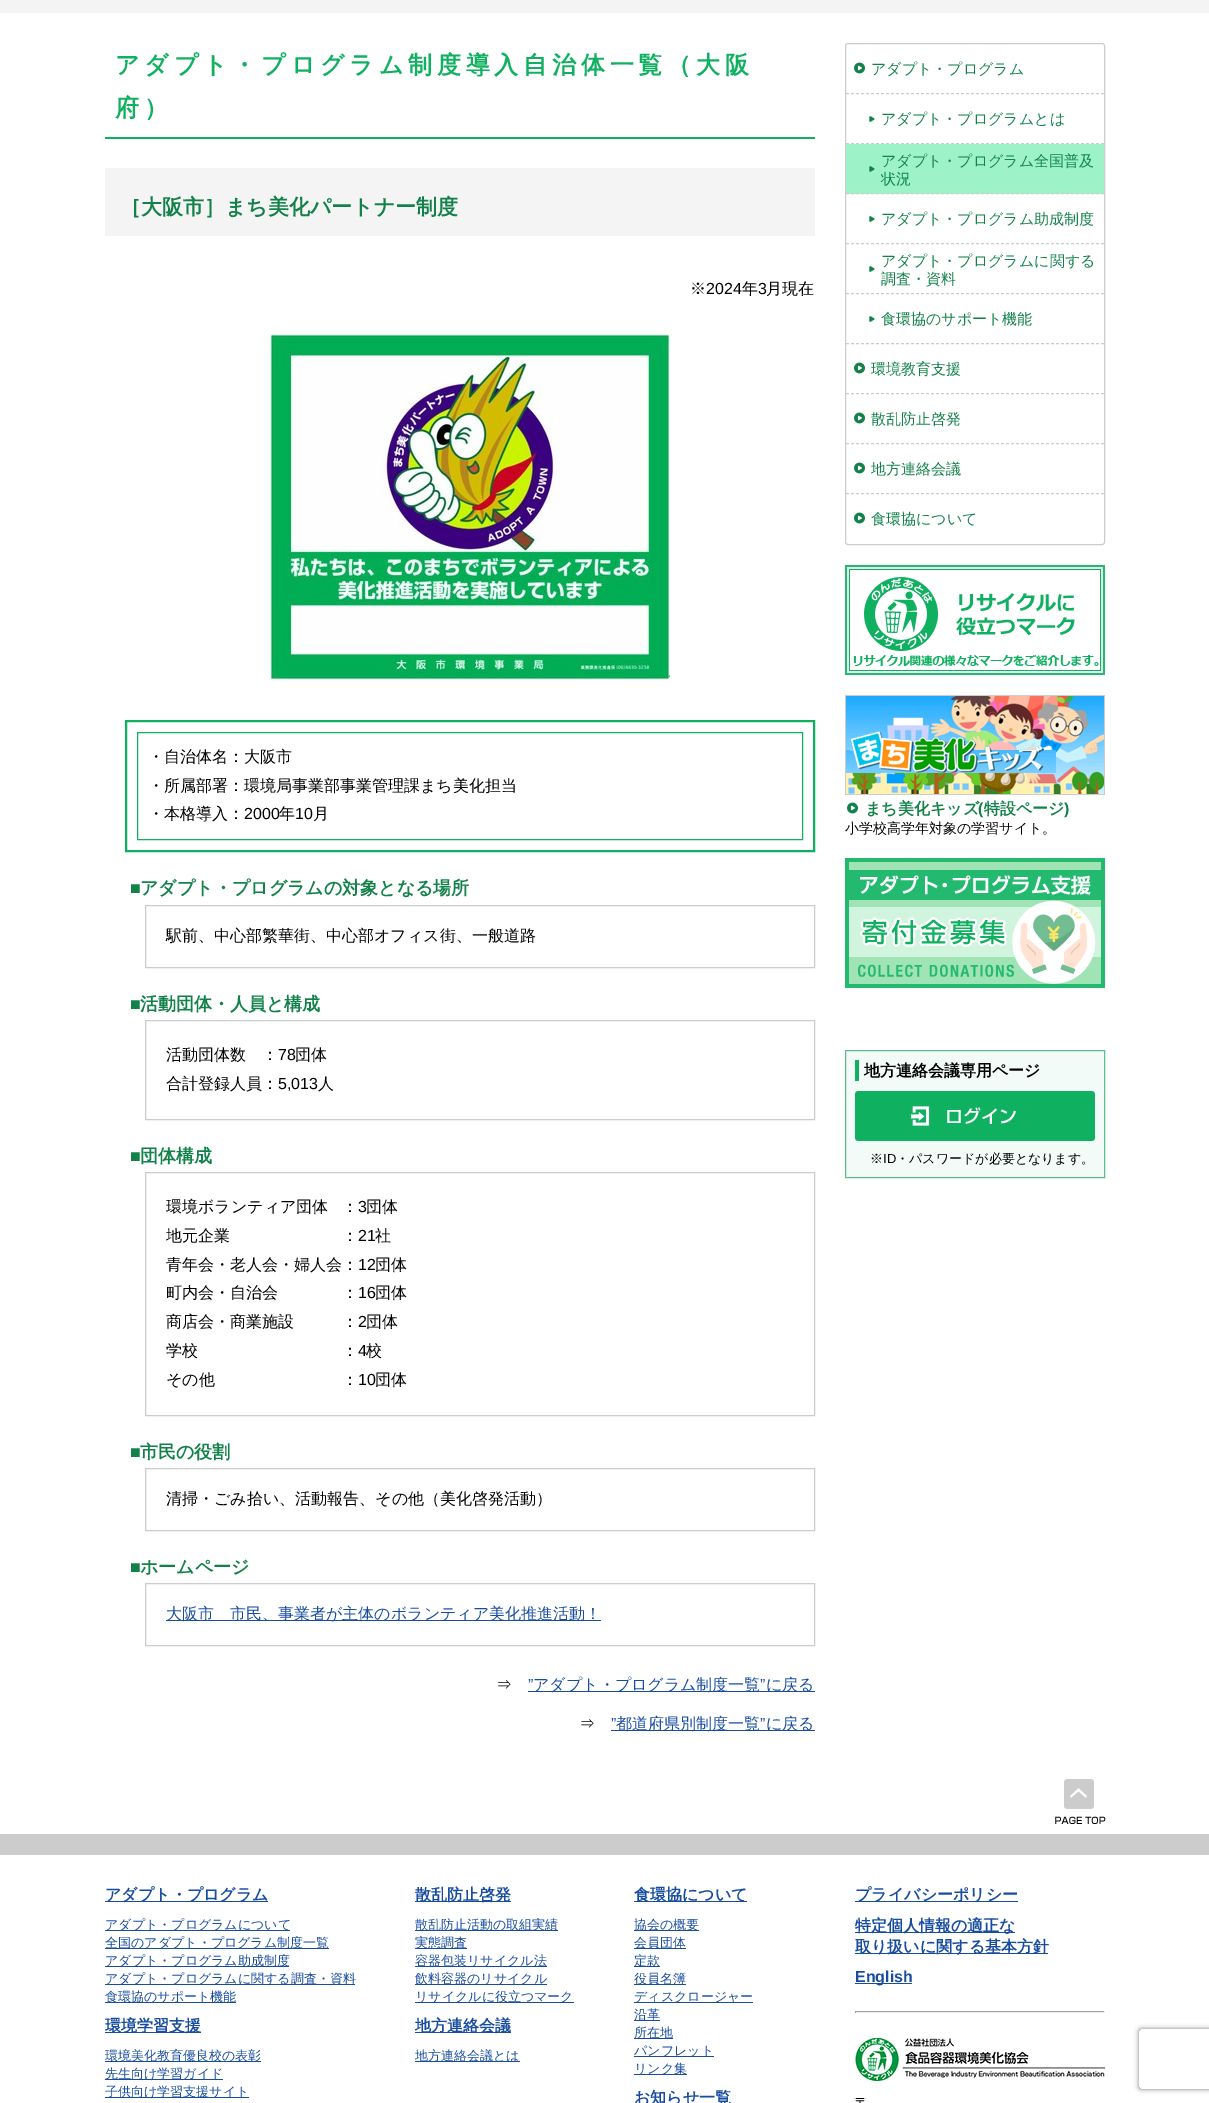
%!PS
<< /PageSize [1209 2103] /PageUsesTransparency true >> setpagedevice
/m/moveto load def
/l/rlineto load def
/c/rcurveto load def
/z/closepath load def
/f/fill load def
/s/stroke load def
/q/gsave load def
/Q_/grestore load def
/w/setlinewidth load def
/C { dup -16 bitshift 255 div exch dup -8 bitshift 255 and 255 div exch 255 and 255 div setrgbcolor } def
/F { [ exch dup neg 0 0 3 -1 roll 0 0 ] selectfont } def
/T { moveto show } def
/R { rectfill } def
/A { dup .setfillconstantalpha .setstrokeconstantalpha } def
/Q { 5 dict begin { /r /h /w /y /x } { exch def } forall
  x r add y moveto x w add y 2 copy h add r arct x w add y h add x 1 index r arct
  x y h add x y r arct x y 2 copy exch w add exch r arct closepath end } def
/S { 12 dict begin { /a /b /q /h /w /y /x } { exch def } forall gsave /was 0 def
  9 -2 -9 { dup b mul 4 div /e exch def 1 sub .425 mul 2.718 exch exp 1 add a .99 .min exch div /now exch def
    1 1 now sub 1 was sub div sub A /was now def
    w h .min e 2 mul add 0 gt { x e sub y e sub w e 2 mul add h e 2 mul add
      q e add b .6 mul add w h .min 2 div e add .min 0 .max Q fill } if } for grestore end } def
/I { 5 dict begin { /h /w /y /x /name } { exch def } forall
  gsave x y translate w h scale
  w h 8 [w 0 0 h 0 0] name (r) file false 3 colorimage grestore end } def
0 .pushpdf14devicefilter
0 2103 translate 1 -1 scale
4 setmiterlimit
16#FFFFFF C
0 0 1209 2103 R
16#F4F4F4 C
0 0 1209 13 R
/WenQuanYiZenHei-Bold 24 F
16#0FB060 C
115 73 m 4.8 0 (アダプト・プログラム制度導入自治体一覧（大阪) ashow
115 116 m 4.8 0 (府）) ashow
105 137 710 2 R
16#F4F4F4 C
105 168 710 68 R
/WenQuanYiZenHei-Bold 21 F
16#12814A C
(［大阪市］まち美化パートナー制度) 120 214 T
/WenQuanYiZenHei-Medium 16 F
16#000000 C
(※) 690 294 T
/LiberationSans-Regular 16 F
(2024) 706 294 T
/WenQuanYiZenHei-Medium 16 F
(年) 742 294 T
/LiberationSans-Regular 16 F
(3) 758 294 T
/WenQuanYiZenHei-Medium 16 F
(月現在) 766 294 T
(1.rgb) 270 334 400 346 I
16#0FB060 C
2 w
126 721 688 130 rectstroke
1 w
137.5 732.5 665 107 rectstroke
16#000000 C
(・自治体名：大阪市) 148 762 T
(・所属部署：環境局事業部事業管理課まち美化担当) 148 791 T
(・本格導入：) 148 819 T
/LiberationSans-Regular 16 F
(2000) 244 819 T
/WenQuanYiZenHei-Medium 16 F
(年) 279 819 T
/LiberationSans-Regular 16 F
(10) 295 819 T
/WenQuanYiZenHei-Medium 16 F
(月) 313 819 T
/LiberationSans-Bold 18 F
16#12814A C
(■) 130 894 T
/WenQuanYiZenHei-Bold 18 F
(アダプト・プログラムの対象となる場所) 140 894 T
16#CCCCCC C
145.5 905.5 669 62 rectstroke
/WenQuanYiZenHei-Medium 16 F
16#000000 C
(駅前、中心部繁華街、中心部オフィス街、一般道路) 166 941 T
/LiberationSans-Bold 18 F
16#12814A C
(■) 130 1010 T
/WenQuanYiZenHei-Bold 18 F
(活動団体・人員と構成) 140 1010 T
16#CCCCCC C
145.5 1020.5 669 99 rectstroke
/WenQuanYiZenHei-Medium 16 F
16#000000 C
(活動団体数) 166 1060 T
(：) 262 1060 T
/LiberationSans-Regular 16 F
(78) 278 1060 T
/WenQuanYiZenHei-Medium 16 F
(団体) 295 1060 T
(合計登録人員：) 166 1089 T
/LiberationSans-Regular 16 F
(5,013) 278 1089 T
/WenQuanYiZenHei-Medium 16 F
(人) 318 1089 T
/LiberationSans-Bold 18 F
16#12814A C
(■) 130 1162 T
/WenQuanYiZenHei-Bold 18 F
(団体構成) 140 1162 T
16#CCCCCC C
145.5 1172.5 669 243 rectstroke
/WenQuanYiZenHei-Medium 16 F
16#000000 C
(環境ボランティア団体) 166 1212 T
(：) 342 1212 T
/LiberationSans-Regular 16 F
(3) 358 1212 T
/WenQuanYiZenHei-Medium 16 F
(団体) 366 1212 T
(地元企業) 166 1241 T
(：) 342 1241 T
/LiberationSans-Regular 16 F
(21) 358 1241 T
/WenQuanYiZenHei-Medium 16 F
(社) 375 1241 T
(青年会・老人会・婦人会：) 166 1270 T
/LiberationSans-Regular 16 F
(12) 358 1270 T
/WenQuanYiZenHei-Medium 16 F
(団体) 375 1270 T
(町内会・自治会) 166 1298 T
(：) 342 1298 T
/LiberationSans-Regular 16 F
(16) 358 1298 T
/WenQuanYiZenHei-Medium 16 F
(団体) 375 1298 T
(商店会・商業施設) 166 1327 T
(：) 342 1327 T
/LiberationSans-Regular 16 F
(2) 358 1327 T
/WenQuanYiZenHei-Medium 16 F
(団体) 366 1327 T
(学校) 166 1356 T
(：) 342 1356 T
/LiberationSans-Regular 16 F
(4) 358 1356 T
/WenQuanYiZenHei-Medium 16 F
(校) 366 1356 T
(その他) 166 1385 T
(：) 342 1385 T
/LiberationSans-Regular 16 F
(10) 358 1385 T
/WenQuanYiZenHei-Medium 16 F
(団体) 375 1385 T
/LiberationSans-Bold 18 F
16#12814A C
(■) 130 1458 T
/WenQuanYiZenHei-Bold 18 F
(市民の役割) 140 1458 T
16#CCCCCC C
145.5 1468.5 669 62 rectstroke
/WenQuanYiZenHei-Medium 16 F
16#000000 C
(清掃・ごみ拾い、活動報告、その他（美化啓発活動）) 166 1504 T
/LiberationSans-Bold 18 F
16#12814A C
(■) 130 1573 T
/WenQuanYiZenHei-Bold 18 F
(ホームページ) 140 1573 T
16#CCCCCC C
145.5 1583.5 669 62 rectstroke
16#184C9F C
166 1620 435 1 R
/WenQuanYiZenHei-Medium 16 F
(大阪市　市民、事業者が主体のボランティア美化推進活動！) 166 1619 T
16#000000 C
(⇒) 496 1690 T
/LiberationSans-Regular 16 F
16#184C9F C
(”) 528 1690 T
528 1691 287 1 R
/WenQuanYiZenHei-Medium 16 F
(アダプト・プログラム制度一覧) 533 1690 T
/LiberationSans-Regular 16 F
(”) 760 1690 T
/WenQuanYiZenHei-Medium 16 F
(に戻る) 766 1690 T
16#000000 C
(⇒) 579 1729 T
/LiberationSans-Regular 16 F
16#184C9F C
(”) 611 1729 T
611 1730 204 1 R
/WenQuanYiZenHei-Medium 16 F
(都道府県別制度一覧) 616 1729 T
/LiberationSans-Regular 16 F
(”) 760 1729 T
/WenQuanYiZenHei-Medium 16 F
(に戻る) 766 1729 T
16#CCCCCC C
845.5 43.5 259 501 2.5 Q s
[3 2] 0 setdash
846 93.5 m 258 0 l s
(2.rgb) 854 62 11 12 I
/WenQuanYiZenHei-Medium 15 F
16#12814A C
(アダプト・プログラム) 871 74 T
16#CCCCCC C
846 143.5 m 258 0 l s
(3.rgb) 869 116 6 6 I
16#12814A C
(アダプト・プログラムとは) 881 124 T
16#9EF2C8 C
846 144 258 50 R
16#CCCCCC C
846 193.5 m 258 0 l s
(4.rgb) 869 166 6 6 I
16#12814A C
(アダプト・プログラム全国普及) 881 166 T
(状況) 881 184 T
16#CCCCCC C
846 243.5 m 258 0 l s
(3.rgb) 869 216 6 6 I
16#12814A C
(アダプト・プログラム助成制度) 881 224 T
16#CCCCCC C
846 293.5 m 258 0 l s
(3.rgb) 869 266 6 6 I
16#12814A C
(アダプト・プログラムに関する) 881 266 T
(調査・資料) 881 284 T
16#CCCCCC C
846 343.5 m 258 0 l s
(3.rgb) 869 316 6 6 I
16#12814A C
(食環協のサポート機能) 881 324 T
16#CCCCCC C
846 393.5 m 258 0 l s
(2.rgb) 854 362 11 12 I
16#12814A C
(環境教育支援) 871 374 T
16#CCCCCC C
846 443.5 m 258 0 l s
(2.rgb) 854 412 11 12 I
16#12814A C
(散乱防止啓発) 871 424 T
16#CCCCCC C
846 493.5 m 258 0 l s
(2.rgb) 854 462 11 12 I
16#12814A C
(地方連絡会議) 871 474 T
(2.rgb) 854 512 11 12 I
(食環協について) 871 524 T
(5.rgb) 845 565 260 110 I
(6.rgb) 845 695 260 100 I
(2.rgb) 847 802 11 12 I
/WenQuanYiZenHei-Bold 16 F
(まち美化キッズ) 865 814 T
/LiberationSans-Bold 16 F
(\() 978 814 T
/WenQuanYiZenHei-Bold 16 F
(特設ページ) 984 814 T
/LiberationSans-Bold 16 F
(\)) 1064 814 T
/WenQuanYiZenHei-Medium 14 F
16#000000 C
(小学校高学年対象の学習サイト。) 845 833 T
(7.rgb) 845 858 260 130 I
16#F2FBF7 C
845.5 1050.5 m 259 0 l 0 127 l -259 0 l z q f Q_
16#5FBC8E C
[] 0 setdash
s
16#0FB060 C
855 1060 4 21 R
/WenQuanYiZenHei-Bold 16 F
16#000000 C
(地方連絡会議専用ページ) 864 1076 T
(8.rgb) 855 1091 240 50 I
/WenQuanYiZenHei-Medium 13 F
(※) 870 1163 T
/LiberationSans-Regular 13 F
(ID) 883 1163 T
/WenQuanYiZenHei-Medium 13 F
(・パスワードが必要となります。) 896 1163 T
(9.rgb) 1055 1779 51 45 I
16#CCCCCC C
0 1834 1209 21 R
16#184C9F C
105 1901 163 1 R
/WenQuanYiZenHei-Bold 16 F
(アダプト・プログラム) 105 1900 T
105 1930 185 1 R
/WenQuanYiZenHei-Medium 13 F
(アダプト・プログラムについて) 105 1929 T
105 1948 224 1 R
(全国のアダプト・プログラム制度一覧) 105 1947 T
105 1966 184 1 R
(アダプト・プログラム助成制度) 105 1965 T
105 1984 250 1 R
(アダプト・プログラムに関する調査・資料) 105 1983 T
105 2002 131 1 R
(食環協のサポート機能) 105 2001 T
105 2032 96 1 R
/WenQuanYiZenHei-Bold 16 F
(環境学習支援) 105 2031 T
105 2061 156 1 R
/WenQuanYiZenHei-Medium 13 F
(環境美化教育優良校の表彰) 105 2060 T
105 2079 118 1 R
(先生向け学習ガイド) 105 2078 T
105 2097 144 1 R
(子供向け学習支援サイト) 105 2096 T
415 1901 96 1 R
/WenQuanYiZenHei-Bold 16 F
(散乱防止啓発) 415 1900 T
415 1930 143 1 R
/WenQuanYiZenHei-Medium 13 F
(散乱防止活動の取組実績) 415 1929 T
415 1948 52 1 R
(実態調査) 415 1947 T
415 1966 132 1 R
(容器包装リサイクル法) 415 1965 T
415 1984 132 1 R
(飲料容器のリサイクル) 415 1983 T
415 2002 159 1 R
(リサイクルに役立つマーク) 415 2001 T
415 2032 96 1 R
/WenQuanYiZenHei-Bold 16 F
(地方連絡会議) 415 2031 T
415 2061 105 1 R
/WenQuanYiZenHei-Medium 13 F
(地方連絡会議とは) 415 2060 T
634 1901 113 1 R
/WenQuanYiZenHei-Bold 16 F
(食環協について) 634 1900 T
634 1930 65 1 R
/WenQuanYiZenHei-Medium 13 F
(協会の概要) 634 1929 T
634 1948 52 1 R
(会員団体) 634 1947 T
634 1966 26 1 R
(定款) 634 1965 T
634 1984 52 1 R
(役員名簿) 634 1983 T
634 2002 119 1 R
(ディスクロージャー) 634 2001 T
634 2020 26 1 R
(沿革) 634 2019 T
634 2038 39 1 R
(所在地) 634 2037 T
634 2056 80 1 R
(パンフレット) 634 2055 T
634 2074 53 1 R
(リンク集) 634 2073 T
/WenQuanYiZenHei-Bold 16 F
(お知らせ一覧) 634 2103 T
855 1901 163 1 R
(プライバシーポリシー) 855 1900 T
855 1932 160 1 R
(特定個人情報の適正な) 855 1931 T
855 1953 193 1 R
(取り扱いに関する基本方針) 855 1952 T
855 1983 57 1 R
/LiberationSans-Bold 16 F
(English) 855 1982 T
16#9F9F9F C
855 2011 250 1 R
16#EEEEEE C
1104 2011 1 2 R
855 2012 250 1 R
16#9F9F9F C
855 2011 1 2 R
(10.rgb) 855 2038 250 43 I
/WenQuanYiZenHei-Medium 13 F
16#000000 C
(〒) 855 2107 T
q
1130 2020 m 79 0 l 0 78 l -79 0 l z 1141 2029 m 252 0 l 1 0 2 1 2 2 c 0 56 l 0 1 -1 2 -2 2 c -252 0 l -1 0 -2 -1 -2 -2 c 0 -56 l 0 -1 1 -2 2 -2 c z eoclip newpath
16#808080 C
1139 2029 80 60 2 2.5 1 S
Q_
.poppdf14devicefilter showpage
